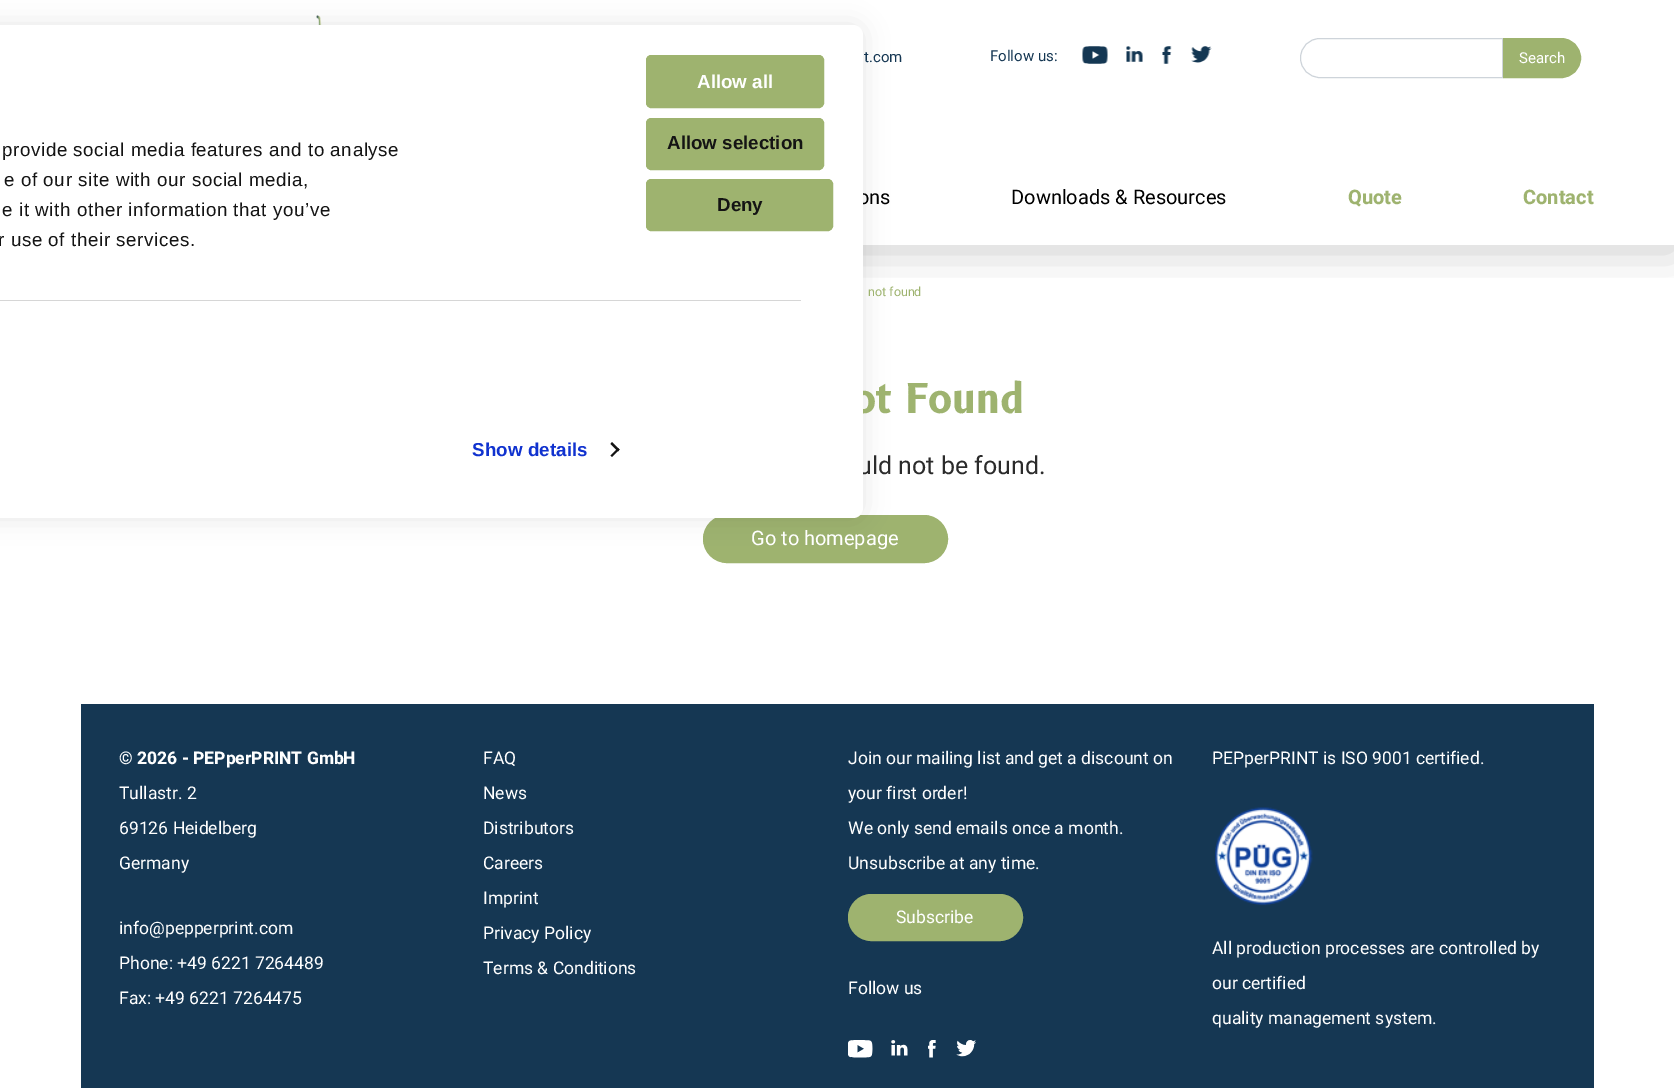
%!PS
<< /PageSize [1674 1088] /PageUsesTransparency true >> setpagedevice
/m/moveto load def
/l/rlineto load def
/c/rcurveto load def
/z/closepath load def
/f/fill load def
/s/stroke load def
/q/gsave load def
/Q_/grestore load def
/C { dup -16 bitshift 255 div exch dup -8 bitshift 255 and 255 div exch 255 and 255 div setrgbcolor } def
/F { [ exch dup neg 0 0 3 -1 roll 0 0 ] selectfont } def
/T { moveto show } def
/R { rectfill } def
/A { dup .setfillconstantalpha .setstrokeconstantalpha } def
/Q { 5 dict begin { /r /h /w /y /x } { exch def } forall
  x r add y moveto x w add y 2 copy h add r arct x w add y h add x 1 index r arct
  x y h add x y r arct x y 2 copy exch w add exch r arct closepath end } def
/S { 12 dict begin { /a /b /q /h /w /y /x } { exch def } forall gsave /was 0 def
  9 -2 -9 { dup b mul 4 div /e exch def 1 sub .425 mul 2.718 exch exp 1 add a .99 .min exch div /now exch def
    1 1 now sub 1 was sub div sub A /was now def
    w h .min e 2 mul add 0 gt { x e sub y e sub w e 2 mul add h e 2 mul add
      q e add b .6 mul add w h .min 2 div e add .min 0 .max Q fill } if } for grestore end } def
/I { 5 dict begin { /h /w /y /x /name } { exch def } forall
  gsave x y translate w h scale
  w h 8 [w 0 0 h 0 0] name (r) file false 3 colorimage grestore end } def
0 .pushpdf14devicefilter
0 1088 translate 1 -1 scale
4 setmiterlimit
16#FFFFFF C
0 0 1674 1088 R
q
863 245 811 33 rectclip
16#000000 C
0 5 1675 245 0 22 .2 S
Q_
(1.rgb) 316 15 6 10 I
16#9EB36F C
703.5 515.5 244 47 23.5 Q q f Q_
s
16#000000 C
-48 25 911 493 10 12.5 .1 S
/Heebo-Regular 20 F
(ons) 858 204 T
/B612-Bold 40 F
16#9EB36F C
(ot Found) 852 413 T
/Heebo-Regular 25 F
16#2B2B2B C
(uld not be found.) 858 474 T
16#FFFFFF C
-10 25 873 493 10 Q f
/LiberationSans-Regular 18.75 F
16#141414 C
2 156 m .6 0 (provide social media features and to analyse) ashow
4 186 m .6 0 (e of our site with our social media,) ashow
2 216 m .6 0 (e it with other information that you’ve) ashow
-2 246 m .6 0 (r use of their services.) ashow
16#D6D6D6 C
0 300 801 1 R
/LiberationSans-Bold 18.75 F
16#1032CF C
472 456 m .1 0 (Show details) ashow
16#141414 C
612 442 m 7.5 7.5 l -1.5 2 l -7.5 -7.5 l z f
618 448 m 1.5 1.5 l -7.5 7.5 l -1.5 -1.5 l z f
16#9EB36F C
646.5 55.5 177 52 4.5 Q q f Q_
s
16#FFFFFF C
(Allow all) 697 88 T
16#9EB36F C
646.5 118.5 177 51 4.5 Q q f Q_
s
16#141414 C
(Allow selection) 667 149 T
16#9EB36F C
646.5 179.5 186 51 4.5 Q q f Q_
s
16#141414 C
(Deny) 717 211 T
/Heebo-Regular 15 F
16#153753 C
(t.com) 864 62 T
(Follow us:) 990 61 T
(2.rgb) 1082 46 26 18 I
(3.rgb) 1126 46 17 16 I
(4.rgb) 1162 46 10 18 I
(5.rgb) 1191 46 21 17 I
16#CED4DA C
1320 38.5 m 182.5 0 l 0 39 l -182.5 0 l -11 0 -19.5 -8.5 -19.5 -19.5 c 0 -11 8.5 -19.5 19.5 -19.5 c z s
16#9EB36F C
1503.5 38.5 m 57.5 0 l 11 0 19.5 8.5 19.5 19.5 c 0 11 -8.5 19.5 -19.5 19.5 c -57.5 0 l z q f Q_
s
16#FFFFFF C
(Search) 1519 63 T
/Heebo-Regular 20 F
16#000000 C
(Downloads & Resources) 1011 204 T
/Heebo-Bold 20 F
16#9EB36F C
(Quote) 1348 204 T
(Contact) 1523 204 T
/Heebo-Regular 12.5 F
(not found) 868 296 T
/Heebo-Regular 20 F
16#FFFFFF C
(Go to homepage) 751 545 T
16#153753 C
81 704 1513 384 R
/Heebo-Bold 17.5 F
16#FFFFFF C
(© 2026 - PEPperPRINT GmbH) 119 764 T
/Heebo-Regular 17.5 F
(Tullastr. 2) 119 799 T
(69126 Heidelberg) 119 834 T
(Germany) 119 869 T
(info@pepperprint.com) 119 934 T
(Phone: +49 6221 7264489) 119 969 T
(Fax: +49 6221 7264475) 119 1004 T
(FAQ) 483 764 T
(News) 483 799 T
(Distributors) 483 834 T
(Careers) 483 869 T
(Imprint) 483 904 T
(Privacy Policy) 483 939 T
(Terms & Conditions) 483 974 T
(Join our mailing list and get a discount on) 848 764 T
(your first order!) 848 799 T
(We only send emails once a month.) 848 834 T
(Unsubscribe at any time.) 848 869 T
16#9EB36F C
848.5 894.5 174 46 23 Q q f Q_
s
16#FFFFFF C
(Subscribe) 896 923 T
(Follow us) 848 994 T
(6.rgb) 848 1040 25 18 I
(7.rgb) 891 1040 17 16 I
(8.rgb) 928 1040 8 18 I
(9.rgb) 956 1040 20 17 I
(PEPperPRINT is ISO 9001 certified.) 1212 764 T
(10.rgb) 1215 807 98 99 I
(All production processes are controlled by) 1212 954 T
(our certified) 1212 989 T
(quality management system.) 1212 1024 T
.poppdf14devicefilter showpage
